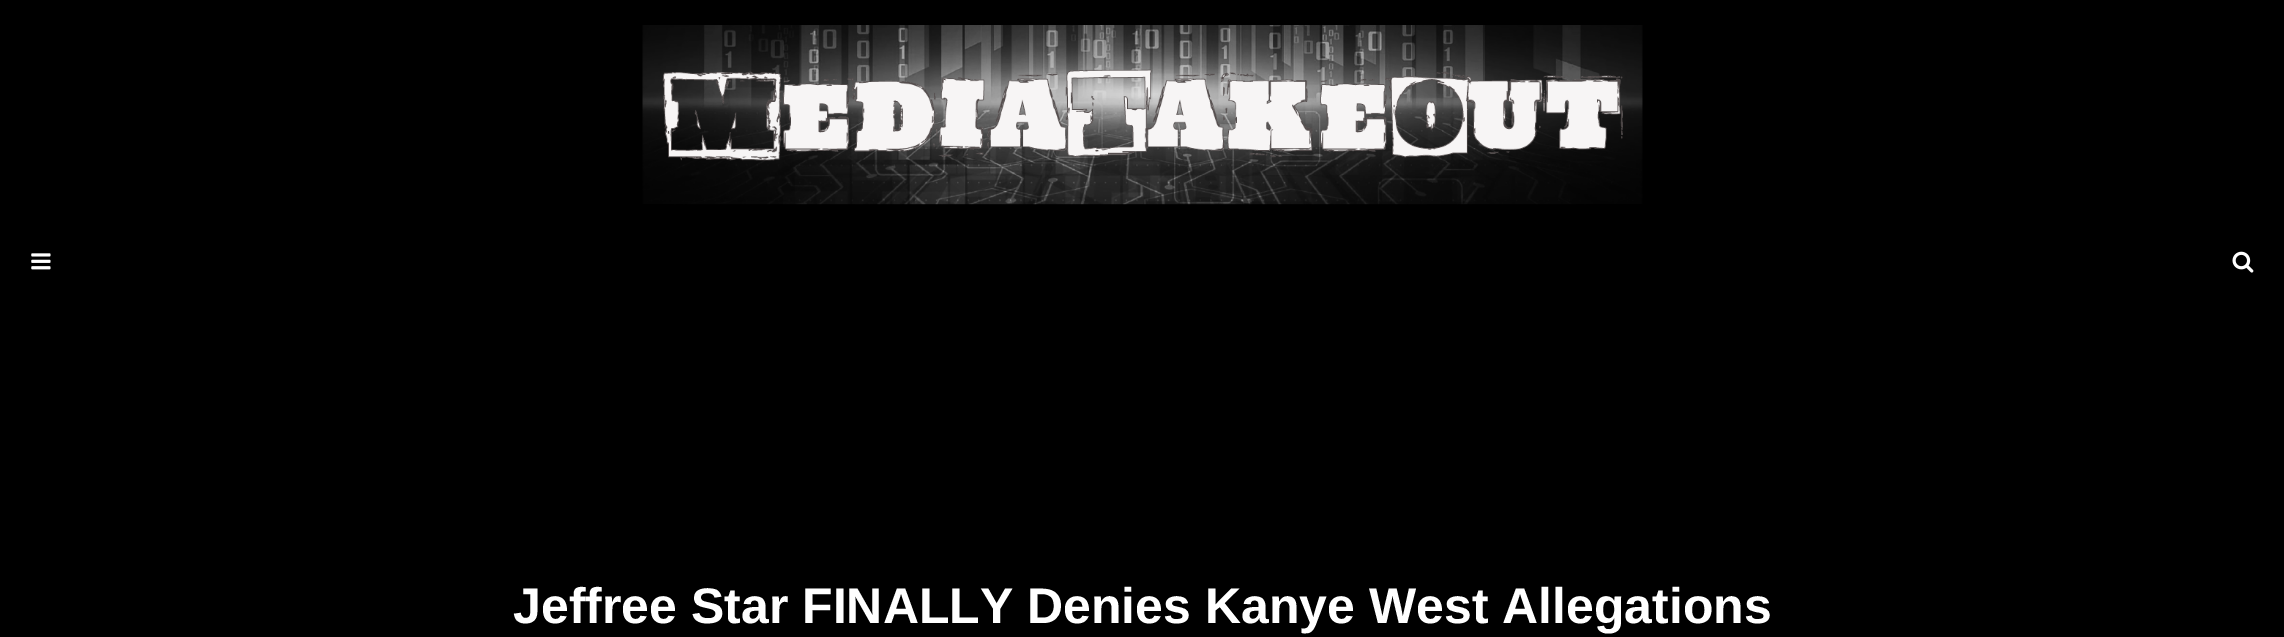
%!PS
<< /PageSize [2284 637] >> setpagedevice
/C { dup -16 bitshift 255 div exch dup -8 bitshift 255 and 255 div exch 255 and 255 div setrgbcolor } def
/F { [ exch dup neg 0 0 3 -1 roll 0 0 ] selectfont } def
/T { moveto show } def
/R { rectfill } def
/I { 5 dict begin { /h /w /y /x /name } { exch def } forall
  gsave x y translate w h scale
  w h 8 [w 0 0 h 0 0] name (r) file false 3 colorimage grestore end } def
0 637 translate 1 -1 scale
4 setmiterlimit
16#000000 C
0 0 2284 637 R
(1.rgb) 642 25 1001 180 I
(2.rgb) 31 253 20 17 I
(3.rgb) 2232 251 22 22 I
/LiberationSans-Bold 50 F
16#FFFFFF C
(Jeffree Star FINALLY Denies Kanye West Allegations) 513 623 T
showpage
